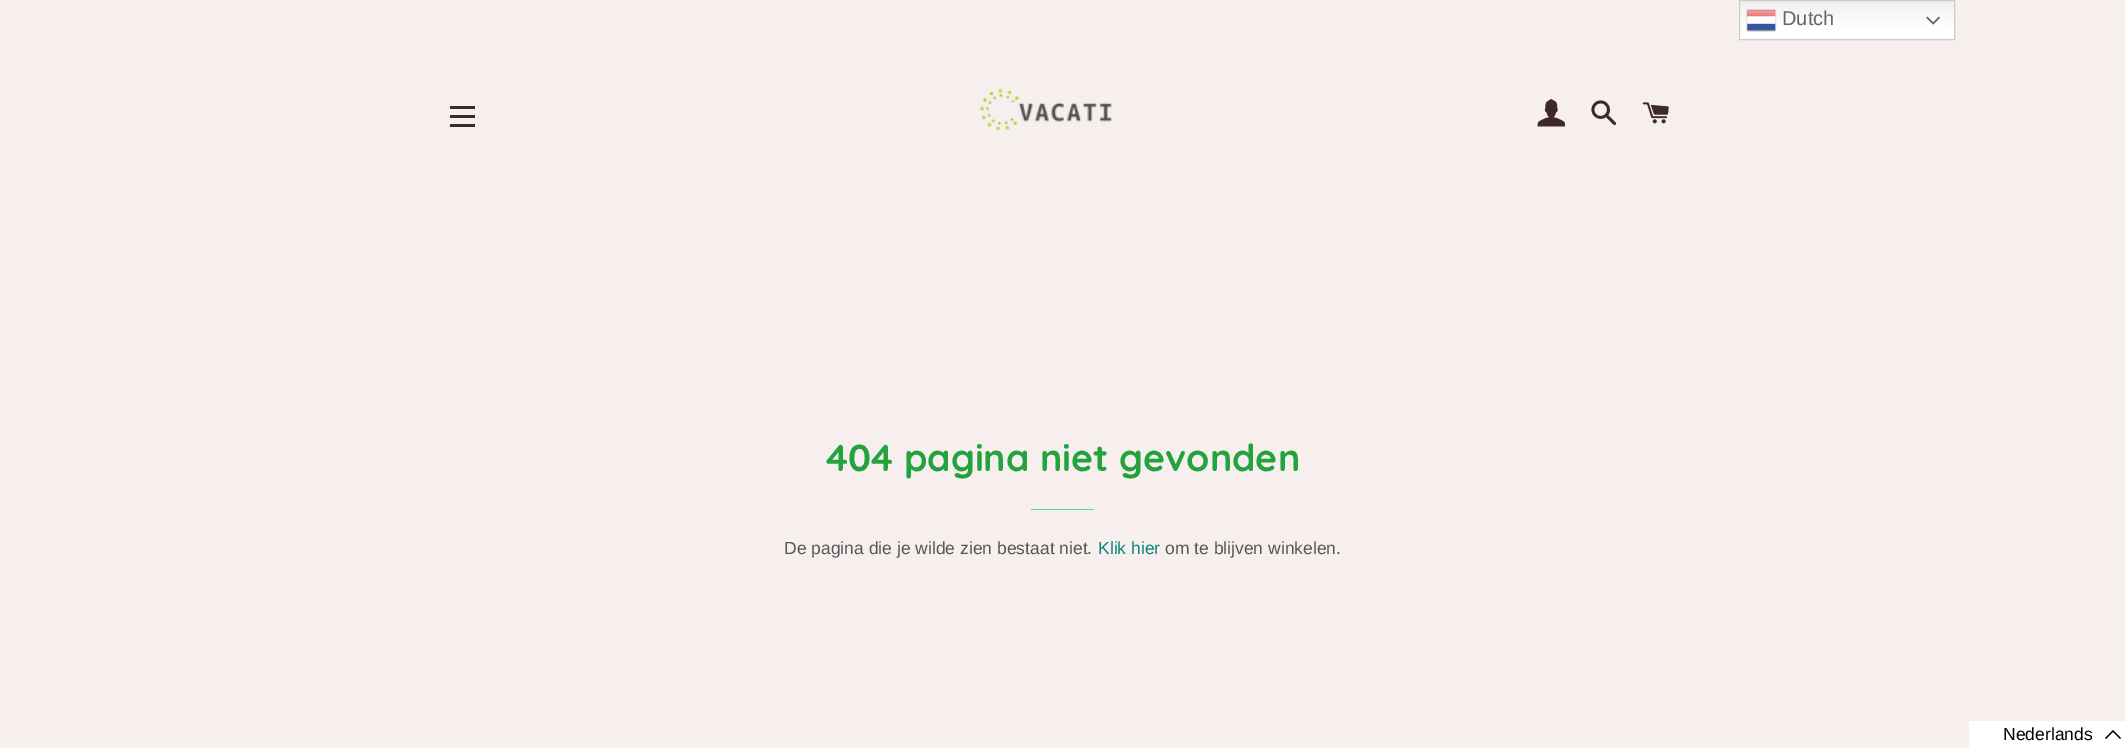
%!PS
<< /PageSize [2125 748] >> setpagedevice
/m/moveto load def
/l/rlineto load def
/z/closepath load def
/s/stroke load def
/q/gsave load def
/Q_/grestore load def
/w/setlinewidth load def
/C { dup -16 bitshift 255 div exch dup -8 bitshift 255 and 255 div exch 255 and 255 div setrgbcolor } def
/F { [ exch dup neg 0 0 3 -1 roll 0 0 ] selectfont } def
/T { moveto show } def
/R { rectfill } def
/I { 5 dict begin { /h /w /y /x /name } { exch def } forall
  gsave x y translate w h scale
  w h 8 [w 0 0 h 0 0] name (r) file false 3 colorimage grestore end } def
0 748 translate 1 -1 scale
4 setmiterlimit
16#F7EEEE C
0 0 2125 748 R
q 1740 1 m 214 0 l 0 38 l -214 0 l z clip newpath
<< /ShadingType 2 /ColorSpace /DeviceRGB /Coords [1847 0 1847 40] /Extend [true true] /Function << /FunctionType 3 /Domain [0 1] /Functions [<< /FunctionType 2 /Domain [0 1] /C0 [.937 .937 .937] /C1 [1 1 1] /N 1 >> << /FunctionType 2 /Domain [0 1] /C0 [1 1 1] /C1 [1 1 1] /N 1 >>] /Bounds [.7] /Encode [0 1 0 1] >> >> shfill Q_
16#CCCCCC C
1739.5 .5 215 39 rectstroke
(1.rgb) 1746 9 31 23 I
/LiberationSans-Regular 20 F
16#666666 C
(Dutch) 1782 25 T
(2.rgb) 1926 16 14 9 I
16#3E2929 C
450 106 25 3 R
450 115 25 3 R
450 124 25 3 R
(3.rgb) 979 88 133 43 I
(4.rgb) 1537 99 28 28 I
(5.rgb) 1591 100 26 25 I
(6.rgb) 1642 102 27 22 I
/Quicksand-Bold 37.5 F
16#23A33D C
(404 pagina niet gevonden) 826 471 T
16#5DD2B4 C
1031 509 63 1 R
/LiberationSans-Regular 17.5 F
16#565656 C
(De pagina die je wilde zien bestaat niet.) 784 554 T
16#058677 C
(Klik hier) 1098 554 T
16#565656 C
(om te blijven winkelen.) 1165 554 T
16#FFFFFF C
1969 721 156 27 R
16#000000 C
(Nederlands) 2003 740 T
1.2 w
2120.5 738.5 m -7.5 -7.5 l -7.5 7.5 l s
showpage
